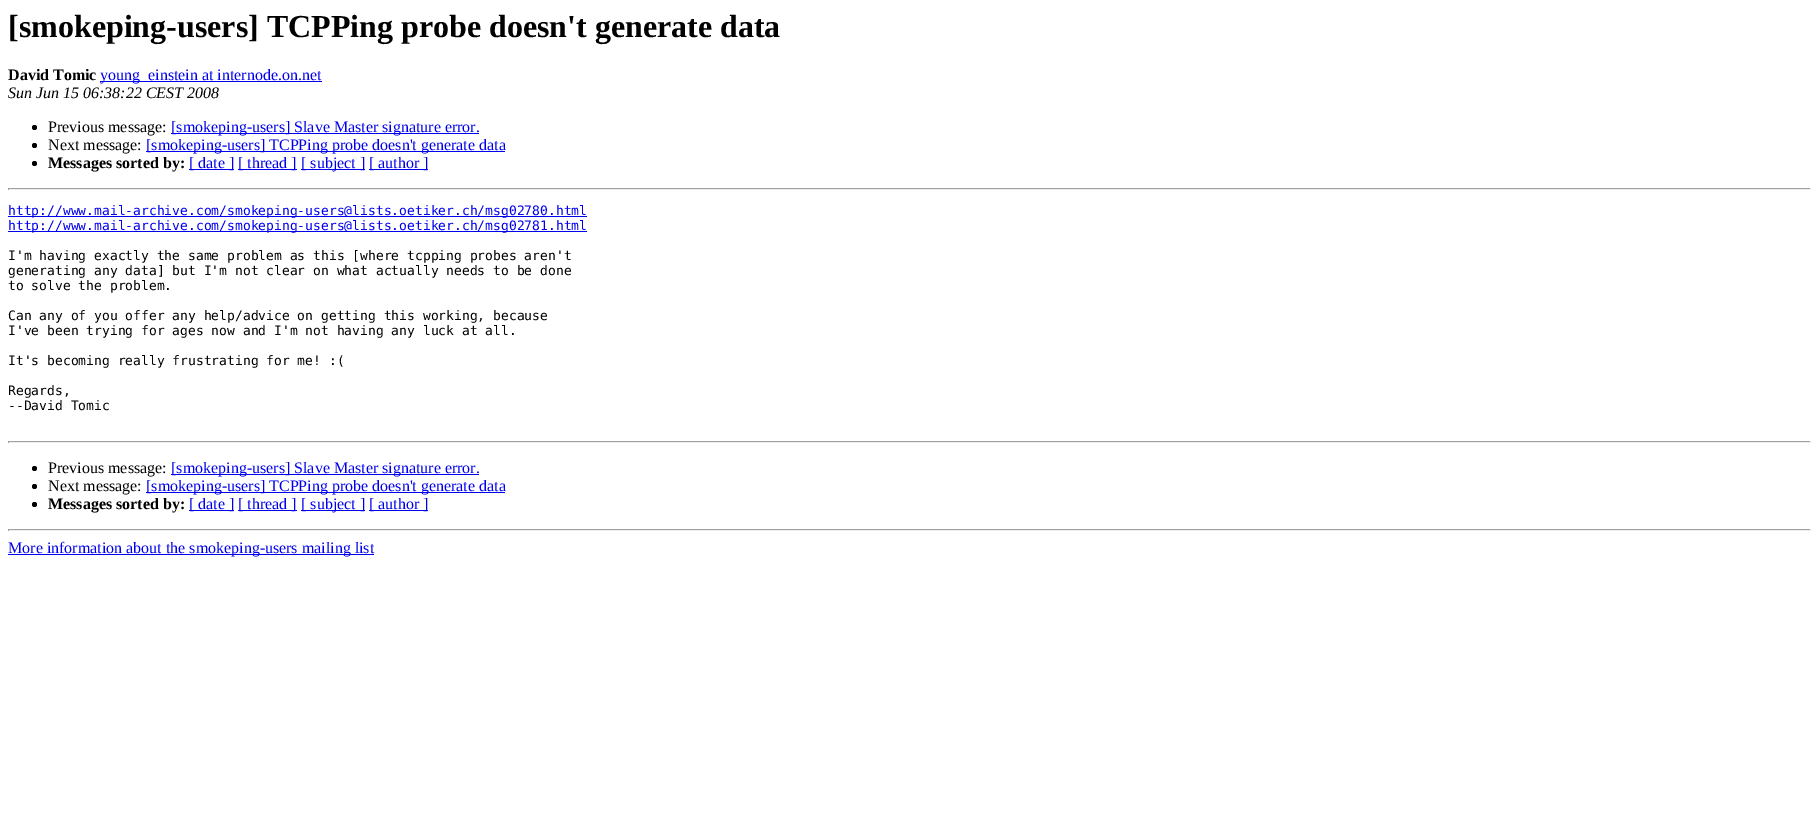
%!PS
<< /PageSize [1819 818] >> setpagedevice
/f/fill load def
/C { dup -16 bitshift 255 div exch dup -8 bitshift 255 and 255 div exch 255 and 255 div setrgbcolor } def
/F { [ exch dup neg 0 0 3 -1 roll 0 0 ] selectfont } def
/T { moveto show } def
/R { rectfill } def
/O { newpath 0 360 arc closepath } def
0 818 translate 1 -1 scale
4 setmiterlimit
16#FFFFFF C
0 0 1819 818 R
/LiberationSerif-Bold 32 F
16#000000 C
([smokeping-users] TCPPing probe doesn't generate data) 8 37 T
/LiberationSerif-Bold 16 F
(David Tomic) 8 80 T
16#0000EE C
100 81 222 1 R
/LiberationSerif-Regular 16 F
(young_einstein at internode.on.net) 100 80 T
/LiberationSerif-Italic 16 F
16#000000 C
(Sun Jun 15 06:38:22 CEST 2008) 8 98 T
34.5 127.5 2.5 O f
/LiberationSerif-Regular 16 F
(Previous message:) 48 132 T
16#0000EE C
171 133 308 1 R
([smokeping-users] Slave Master signature error.) 171 132 T
16#000000 C
34.5 145.5 2.5 O f
(Next message:) 48 150 T
16#0000EE C
146 151 359 1 R
([smokeping-users] TCPPing probe doesn't generate data) 146 150 T
16#000000 C
34.5 163.5 2.5 O f
/LiberationSerif-Bold 16 F
(Messages sorted by:) 48 168 T
16#0000EE C
189 169 45 1 R
/LiberationSerif-Regular 16 F
([ date ]) 189 168 T
238 169 59 1 R
([ thread ]) 238 168 T
301 169 64 1 R
([ subject ]) 301 168 T
369 169 59 1 R
([ author ]) 369 168 T
16#9F9F9F C
8 188 1803 1 R
16#EEEEEE C
1810 188 1 2 R
8 189 1803 1 R
16#9F9F9F C
8 188 1 2 R
16#0000EE C
8 216 579 1 R
/DejaVuSansMono-Regular 13 F
(http://www.mail-archive.com/smokeping-users@lists.oetiker.ch/msg02780.html) 8 215 T
8 231 579 1 R
(http://www.mail-archive.com/smokeping-users@lists.oetiker.ch/msg02781.html) 8 230 T
16#000000 C
(I'm having exactly the same problem as this [where tcpping probes aren't) 8 260 T
(generating any data] but I'm not clear on what actually needs to be done) 8 275 T
(to solve the problem.) 8 290 T
(Can any of you offer any help/advice on getting this working, because) 8 320 T
(I've been trying for ages now and I'm not having any luck at all.) 8 335 T
(It's becoming really frustrating for me! :\() 8 365 T
(Regards,) 8 395 T
(--David Tomic) 8 410 T
16#9F9F9F C
8 441 1803 1 R
16#EEEEEE C
1810 441 1 2 R
8 442 1803 1 R
16#9F9F9F C
8 441 1 2 R
16#000000 C
34.5 468.5 2.5 O f
/LiberationSerif-Regular 16 F
(Previous message:) 48 473 T
16#0000EE C
171 474 308 1 R
([smokeping-users] Slave Master signature error.) 171 473 T
16#000000 C
34.5 486.5 2.5 O f
(Next message:) 48 491 T
16#0000EE C
146 492 359 1 R
([smokeping-users] TCPPing probe doesn't generate data) 146 491 T
16#000000 C
34.5 504.5 2.5 O f
/LiberationSerif-Bold 16 F
(Messages sorted by:) 48 509 T
16#0000EE C
189 510 45 1 R
/LiberationSerif-Regular 16 F
([ date ]) 189 509 T
238 510 59 1 R
([ thread ]) 238 509 T
301 510 64 1 R
([ subject ]) 301 509 T
369 510 59 1 R
([ author ]) 369 509 T
16#9F9F9F C
8 529 1803 1 R
16#EEEEEE C
1810 529 1 2 R
8 530 1803 1 R
16#9F9F9F C
8 529 1 2 R
16#0000EE C
8 554 366 1 R
(More information about the smokeping-users mailing list) 8 553 T
showpage
